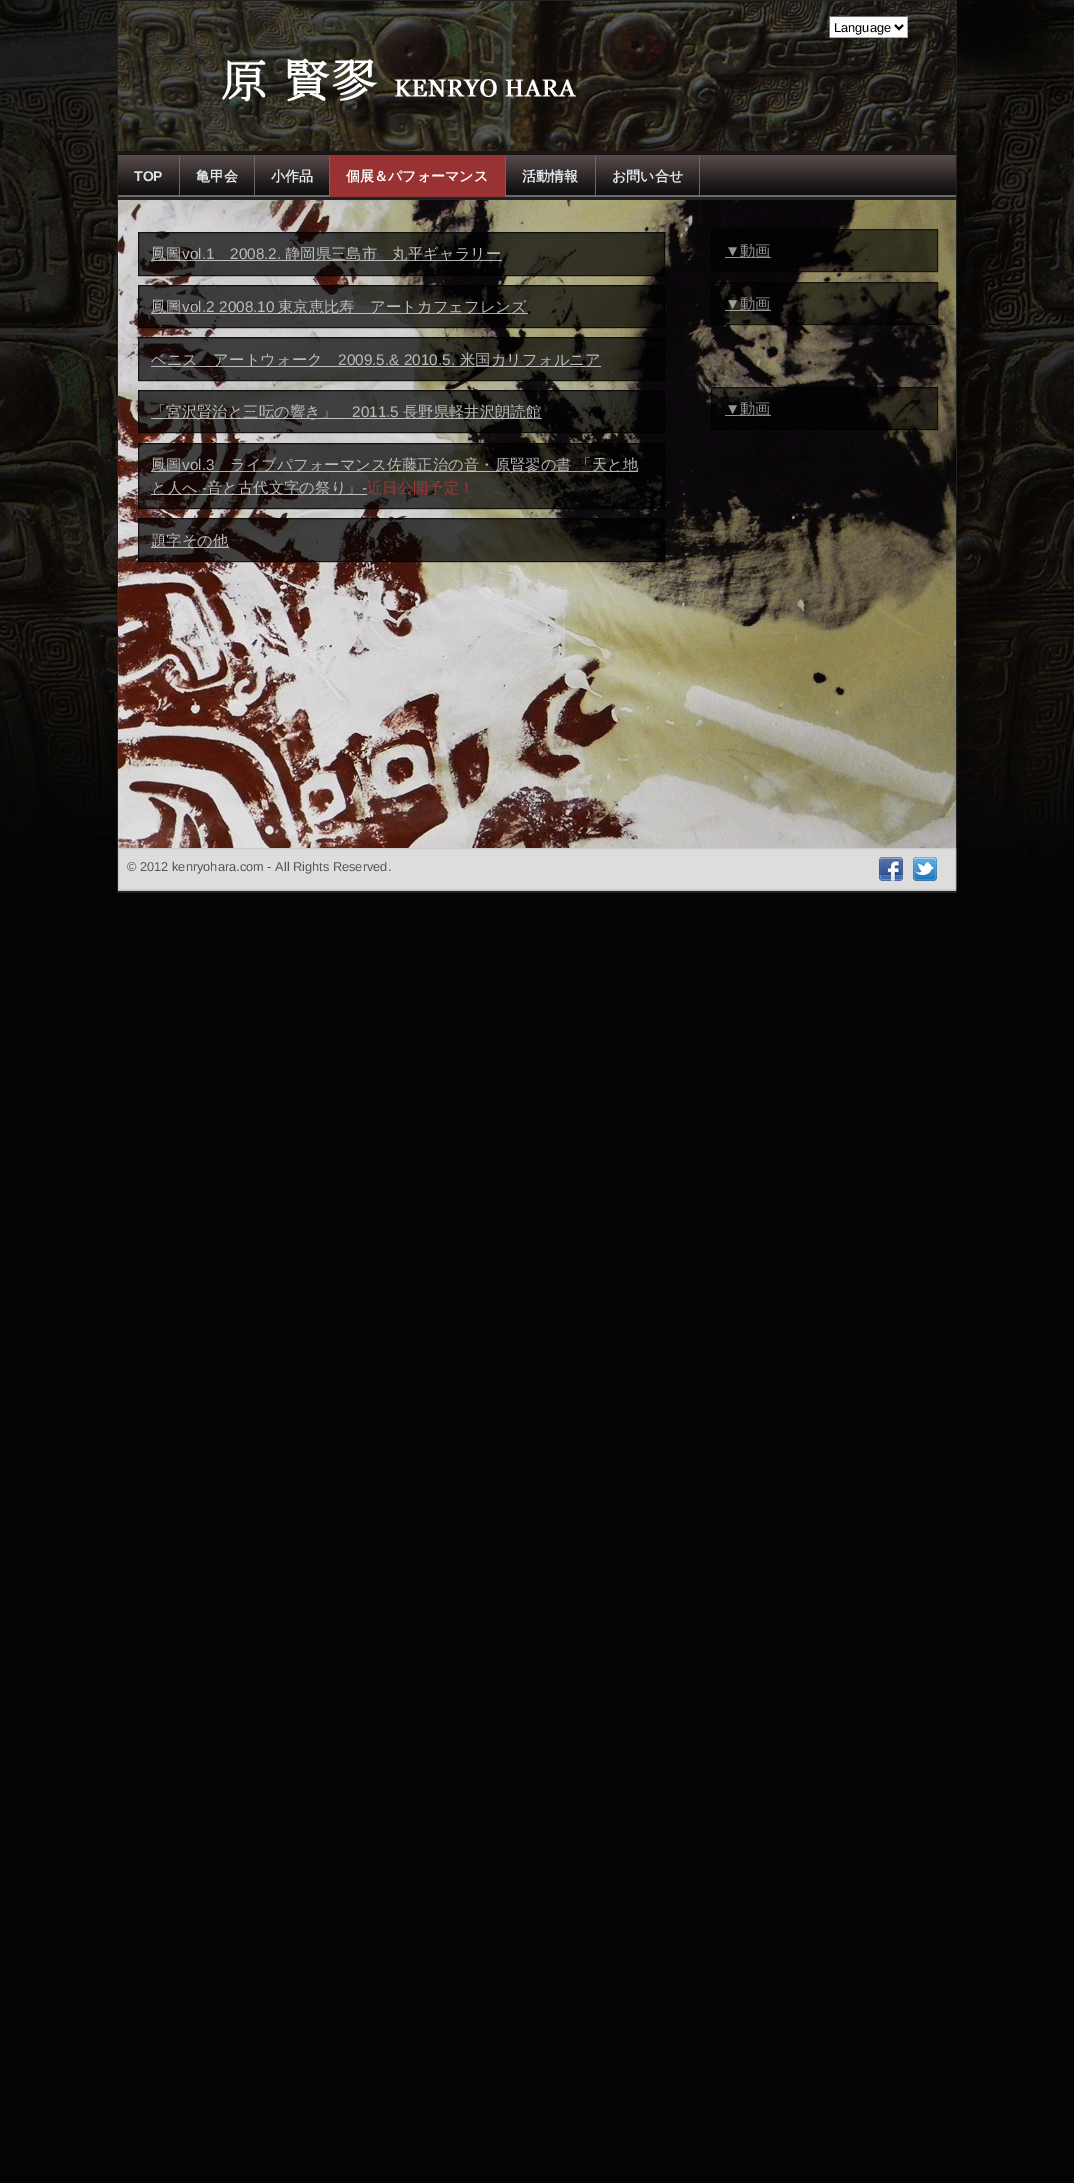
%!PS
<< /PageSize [1074 2183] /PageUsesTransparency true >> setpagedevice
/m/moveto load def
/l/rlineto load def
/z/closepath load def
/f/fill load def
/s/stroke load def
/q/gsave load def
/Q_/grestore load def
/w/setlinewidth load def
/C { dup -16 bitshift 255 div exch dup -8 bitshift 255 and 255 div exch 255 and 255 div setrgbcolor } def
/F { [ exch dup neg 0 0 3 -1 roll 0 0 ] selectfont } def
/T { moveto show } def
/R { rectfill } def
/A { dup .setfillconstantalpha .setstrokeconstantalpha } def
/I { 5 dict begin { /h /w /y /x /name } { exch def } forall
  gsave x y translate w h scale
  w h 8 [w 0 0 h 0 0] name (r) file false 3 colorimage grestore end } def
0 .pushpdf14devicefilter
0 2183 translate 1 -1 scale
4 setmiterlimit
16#040404 C
0 0 1074 2183 R
(1.rgb) 0 0 1074 865 I
16#222222 C
117 0 840 893 R
(2.rgb) 118 1 838 150 I
16#FCFCFC C
830 17 77 20 R
16#717171 C
829 16 79 1 R
16#AAAAAA C
907 16 1 22 R
829 37 79 1 R
16#717171 C
829 16 1 22 R
16#000000 C
2 w
895 25 m 4 4 l 4 -4 l s
/LiberationSans-Regular 12.8 F
(Language) 834 32 T
16#696969 C
118 195 838 2 R
(3.rgb) 118 151 838 44 I
179 156 1 41 R
/LiberationSans-Bold 14 F
16#E0E6EA C
(TOP) 134 181 T
16#696969 C
254 156 1 41 R
/WenQuanYiZenHei-Bold 14 F
16#E0E6EA C
(亀甲会) 196 181 T
16#696969 C
329 156 1 41 R
16#E0E6EA C
(小作品) 271 181 T
16#696969 C
505 156 1 41 R
16#993333 C
330 156 175 41 R
16#FFFFFF C
(個展＆パフォーマンス) 346 181 T
16#696969 C
595 156 1 41 R
16#E0E6EA C
(活動情報) 522 181 T
16#696969 C
699 156 1 41 R
16#E0E6EA C
(お問い合せ) 612 181 T
16#C3C4C1 C
118 890 838 1 R
(4.rgb) 118 200 838 648 I
0.7 A
16#000000 C
138 232 527 44 R
1 w
138.5 232.5 526 43 rectstroke
16#F5F5F5 C
151 260 351 1 R
/WenQuanYiZenHei-Medium 15.35 F
1 A
16#BBBABA C
(鳳圖) 151 259 T
/LiberationSans-Regular 15.35 F
(vol.1) 182 259 T
(2008.2.) 230 259 T
/WenQuanYiZenHei-Medium 15.35 F
(静岡県三島市　丸平ギャラリー) 285 259 T
0.7 A
16#000000 C
138 285 527 43 R
138.5 285.5 526 42 rectstroke
16#F5F5F5 C
151 313 68 1 R
1 A
16#BBBABA C
(鳳圖) 151 312 T
/LiberationSans-Regular 15.35 F
(vol.2) 182 312 T
(2008.10) 219 312 T
0.7 A
16#F5F5F5 C
219 313 60 1 R
278 313 250 1 R
/WenQuanYiZenHei-Medium 15.35 F
1 A
16#BBBABA C
(東京恵比寿　アートカフェフレンズ) 278 312 T
0.7 A
16#000000 C
138 337 527 44 R
138.5 337.5 526 43 rectstroke
16#F5F5F5 C
151 366 309 1 R
1 A
16#BBBABA C
(ベニス　アートウォーク) 151 365 T
/LiberationSans-Regular 15.35 F
(2009.5.& 2010.5.) 338 365 T
0.7 A
16#F5F5F5 C
460 366 141 1 R
/WenQuanYiZenHei-Medium 15.35 F
1 A
16#BBBABA C
(米国カリフォルニア) 460 365 T
0.7 A
16#000000 C
138 390 527 43 R
138.5 390.5 526 42 rectstroke
16#F5F5F5 C
151 418 252 1 R
1 A
16#BBBABA C
(「宮沢賢治と三呍の響き」) 151 417 T
/LiberationSans-Regular 15.35 F
(2011.5) 352 417 T
0.7 A
16#F5F5F5 C
403 418 139 1 R
/WenQuanYiZenHei-Medium 15.35 F
1 A
16#BBBABA C
(長野県軽井沢朗読館) 403 417 T
0.7 A
16#000000 C
138 443 527 66 R
138.5 443.5 526 65 rectstroke
16#F5F5F5 C
151 471 487 1 R
1 A
16#BBBABA C
(鳳圖) 151 470 T
/LiberationSans-Regular 15.35 F
16#B6B4B4 C
(vol.3) 182 470 T
/WenQuanYiZenHei-Medium 15.35 F
16#BBBABA C
(ライブパフォーマンス佐藤正治の音・原賢翏の書 「天と地) 230 470 T
0.7 A
16#F5F5F5 C
151 494 216 1 R
1 A
16#B6B4B4 C
(と人へ) 151 493 T
/LiberationSans-Regular 15.35 F
16#BBBABA C
(-) 202 493 T
/WenQuanYiZenHei-Medium 15.35 F
(音と古代文字の祭り」) 207 493 T
/LiberationSans-Regular 15.35 F
(-) 362 493 T
/WenQuanYiZenHei-Medium 15.35 F
16#A03433 C
(近日公開予定！) 367 493 T
0.7 A
16#000000 C
138 518 527 44 R
138.5 518.5 526 43 rectstroke
16#F5F5F5 C
151 547 78 1 R
1 A
16#BBBABA C
(題字その他) 151 546 T
0.6 A
16#000000 C
711 229 227 43 R
711.5 229.5 226 42 rectstroke
/LiberationSans-Regular 15.35 F
1 A
16#949494 C
(▼) 725 256 T
0.6 A
16#F5F5F5 C
725 257 46 1 R
/WenQuanYiZenHei-Medium 15.35 F
1 A
16#949494 C
(動画) 740 256 T
0.6 A
16#000000 C
711 282 227 43 R
711.5 282.5 226 42 rectstroke
/LiberationSans-Regular 15.35 F
1 A
16#A3A19E C
(▼) 725 309 T
0.6 A
16#F5F5F5 C
725 310 46 1 R
/WenQuanYiZenHei-Medium 15.35 F
1 A
16#949494 C
(動画) 740 309 T
0.6 A
16#000000 C
711 387 227 43 R
711.5 387.5 226 42 rectstroke
/LiberationSans-Regular 15.35 F
1 A
16#949494 C
(▼) 725 414 T
0.6 A
16#F5F5F5 C
725 415 46 1 R
/WenQuanYiZenHei-Medium 15.35 F
1 A
16#949494 C
(動画) 740 414 T
16#DDDDDD C
118.5 848.5 m 837 0 l 0 41 l -837 0 l z q f Q_
16#CCCCCC C
s
/LiberationSans-Regular 12.8 F
16#555555 C
(© 2012 kenryohara.com - All Rights Reserved.) 127 871 T
(5.rgb) 879 857 24 24 I
(6.rgb) 913 857 24 24 I
.poppdf14devicefilter showpage
